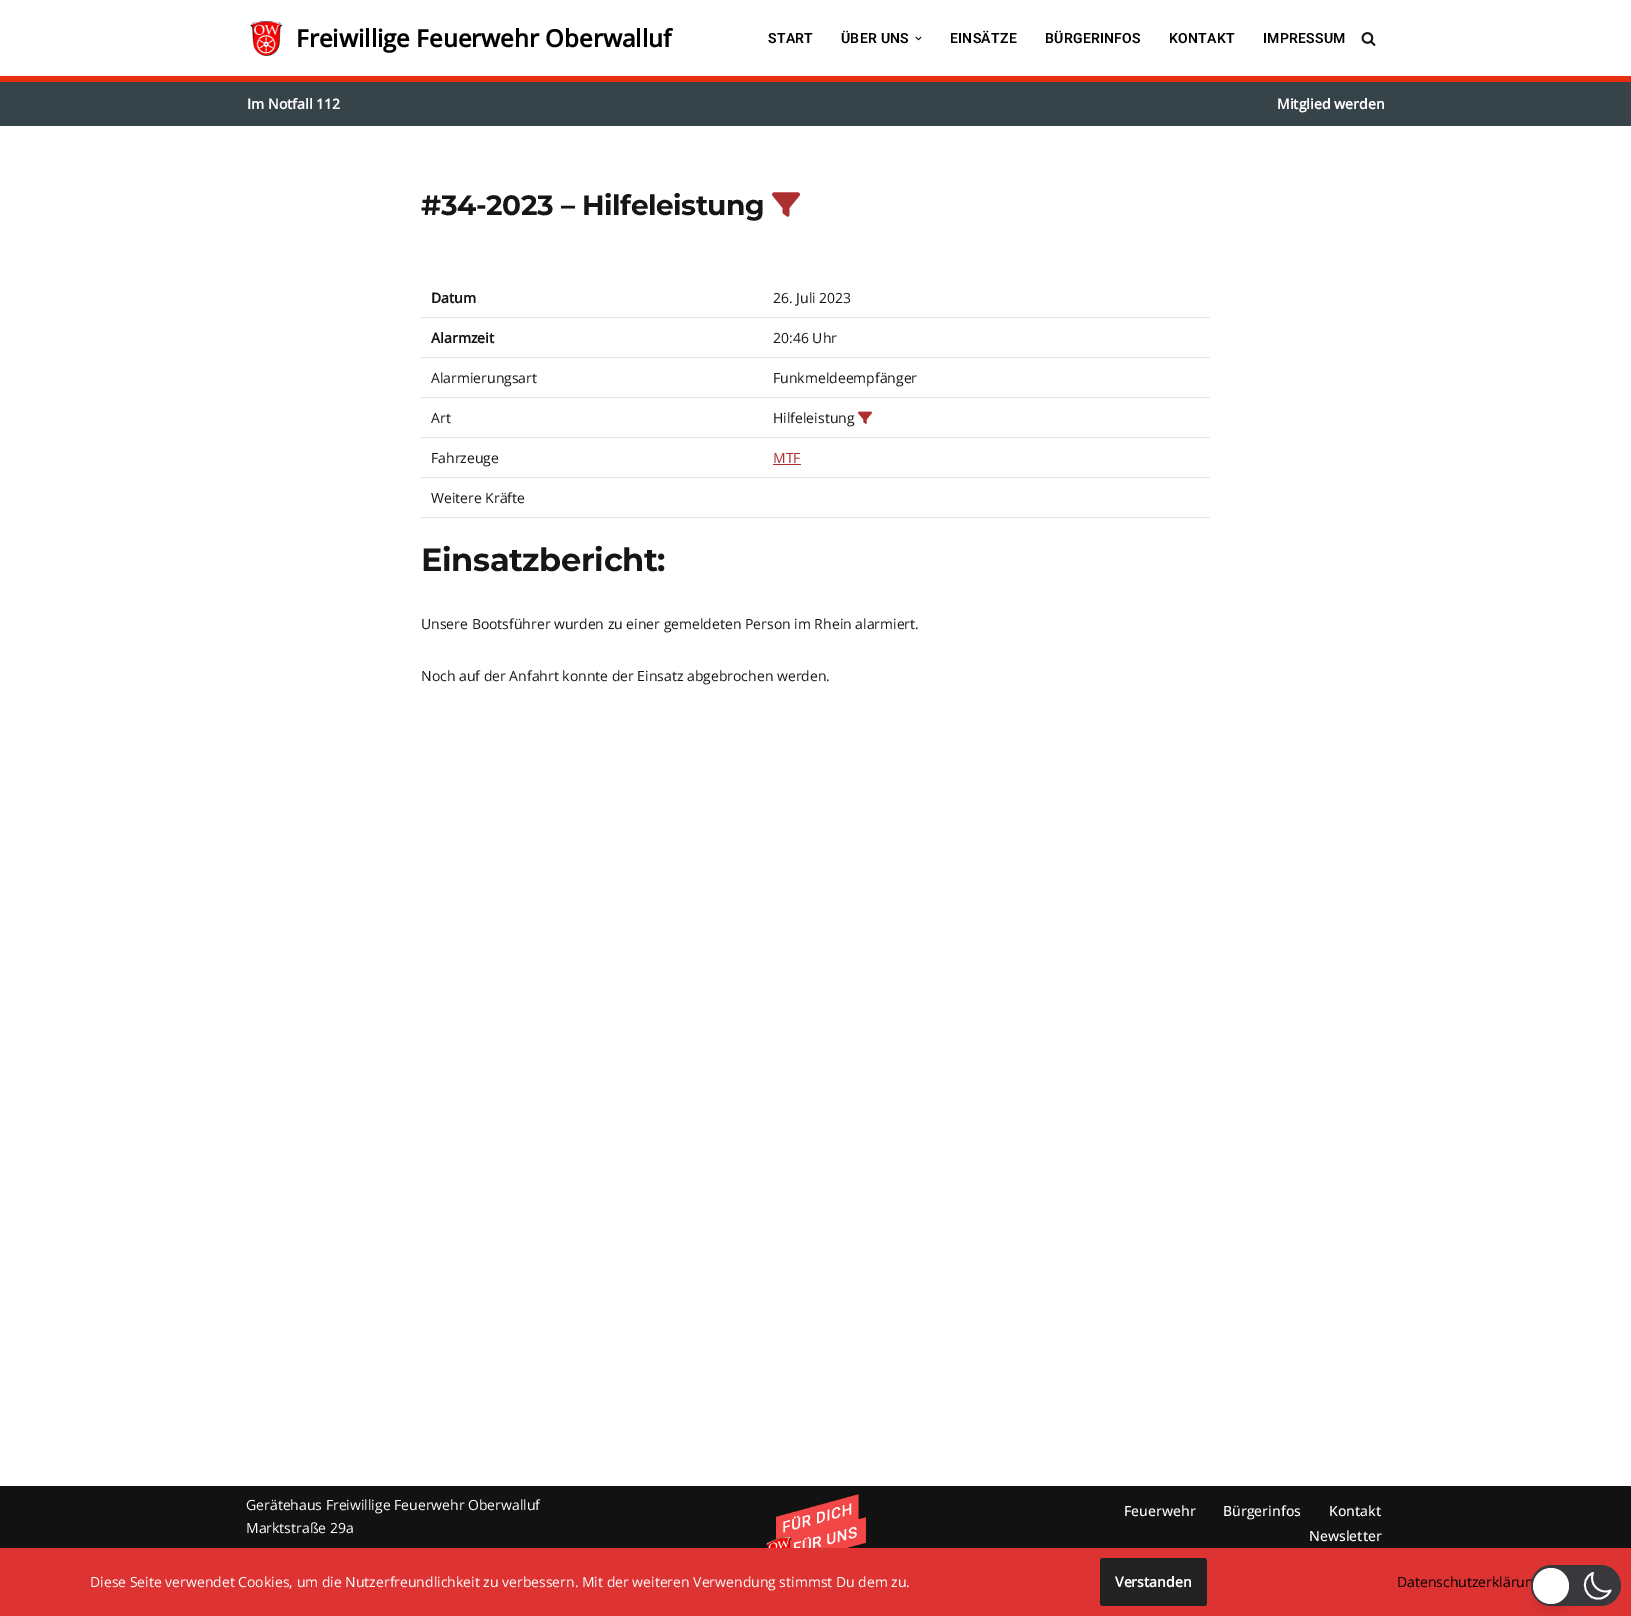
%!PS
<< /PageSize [1631 1616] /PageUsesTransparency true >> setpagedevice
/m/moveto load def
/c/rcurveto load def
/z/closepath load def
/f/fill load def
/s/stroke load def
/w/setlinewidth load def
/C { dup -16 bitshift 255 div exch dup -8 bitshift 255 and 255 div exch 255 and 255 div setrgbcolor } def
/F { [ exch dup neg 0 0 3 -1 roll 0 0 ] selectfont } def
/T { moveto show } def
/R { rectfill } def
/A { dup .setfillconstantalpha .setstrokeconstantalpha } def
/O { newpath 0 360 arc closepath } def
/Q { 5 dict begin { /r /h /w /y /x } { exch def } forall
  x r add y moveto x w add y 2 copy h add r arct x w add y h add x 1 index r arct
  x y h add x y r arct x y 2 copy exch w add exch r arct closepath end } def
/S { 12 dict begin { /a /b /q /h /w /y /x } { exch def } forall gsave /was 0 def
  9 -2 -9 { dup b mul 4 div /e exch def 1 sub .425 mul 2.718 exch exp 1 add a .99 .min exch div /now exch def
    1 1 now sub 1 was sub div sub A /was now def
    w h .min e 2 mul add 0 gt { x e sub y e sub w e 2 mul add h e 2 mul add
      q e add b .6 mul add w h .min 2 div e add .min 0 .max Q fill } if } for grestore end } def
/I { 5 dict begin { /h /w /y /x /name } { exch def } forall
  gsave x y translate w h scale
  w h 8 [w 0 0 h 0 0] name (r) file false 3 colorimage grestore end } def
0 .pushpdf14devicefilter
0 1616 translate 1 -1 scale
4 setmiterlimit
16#FFFFFF C
0 0 1631 1616 R
16#E62F0E C
0 76 1631 6 R
(1.rgb) 250 21 33 35 I
/OpenSans-Bold 24 F
16#000000 C
(Freiwillige Feuerwehr Oberwalluf) 296 47 T
/Roboto-SemiBold 14 F
768 43 m .25 0 (START) ashow
841 43 m .25 0 (ÜBER UNS) ashow
(2.rgb) 915 36 7 5 I
950 43 m .25 0 (EINSÄTZE) ashow
1045 43 m .25 0 (BÜRGERINFOS) ashow
1169 43 m .25 0 (KONTAKT) ashow
1263 43 m .25 0 (IMPRESSUM) ashow
(3.rgb) 1361 32 15 14 I
16#364349 C
0 82 1631 44 R
/OpenSans-Bold 14 F
16#FFFFFF C
(Im Notfall 112) 247 109 T
(Mitglied werden) 1277 109 T
/Montserrat-Bold 28 F
16#161616 C
421 215 m -.4 0 (#34-2023 – Hilfeleistung) ashow
(4.rgb) 772 192 28 25 I
16#DAE4E9 C
421 317 789 1 R
/OpenSans-Bold 14 F
16#161616 C
(Datum) 431 303 T
/OpenSans-Regular 14 F
(26. Juli 2023) 773 303 T
16#DAE4E9 C
421 357 789 1 R
/OpenSans-Bold 14 F
16#161616 C
(Alarmzeit) 431 343 T
/OpenSans-Regular 14 F
(20:46 Uhr) 773 343 T
16#DAE4E9 C
421 397 789 1 R
16#161616 C
(Alarmierungsart) 431 383 T
(Funkmeldeempfänger) 773 383 T
16#DAE4E9 C
421 437 789 1 R
16#161616 C
(Art) 431 423 T
(Hilfeleistung) 773 423 T
(5.rgb) 858 411 14 13 I
16#DAE4E9 C
421 477 789 1 R
16#161616 C
(Fahrzeuge) 431 463 T
16#AD2F2F C
(MTF) 773 463 T
773 464 28 1 R
16#DAE4E9 C
421 517 789 1 R
16#161616 C
(Weitere Kräfte) 431 503 T
/Montserrat-Bold 32 F
421 571 m -.4 0 (Einsatzbericht:) ashow
/OpenSans-Regular 14 F
(Unsere Bootsführer wurden zu einer gemeldeten Person im Rhein alarmiert.) 421 629 T
(Noch auf der Anfahrt konnte der Einsatz abgebrochen werden.) 421 681 T
16#121212 C
0 1486 1631 62 R
16#FFFFFF C
(Gerätehaus Freiwillige Feuerwehr Oberwalluf) 246 1510 T
(Marktstraße 29a) 246 1533 T
(6.rgb) 766 1494 100 54 I
/OpenSans-Medium 14 F
(Feuerwehr) 1124 1516 T
(Bürgerinfos) 1223 1516 T
(Kontakt) 1329 1516 T
(Newsletter) 1309 1541 T
16#DD3333 C
0 1548 1631 68 R
/OpenSans-Regular 14 F
16#FFFFFF C
(Diese Seite verwendet Cookies, um die Nutzerfreundlichkeit zu verbessern. Mit der weiteren Verwendung stimmst Du dem zu.) 90 1587 T
16#222222 C
1100 1558 107 48 3 Q f
/OpenSans-Bold 14 F
16#FFFFFF C
(Verstanden) 1115 1587 T
/OpenSans-Regular 14 F
16#000000 C
(Datenschutzerklärun) 1397 1587 T
16#39393D C
1531 1565 90 41 20.5 Q f
16#FFFFFF C
1.8 w
1 setlinecap
1 setlinejoin
1610.5 1590.5 m -11 4.5 -22 -6.5 -17.5 -17.5 c -15.5 6.5 -7 30 9 25 c 4 -1 7 -4 8.5 -7.5 c z s
16#000000 C
1536 1581 30 30 15 7.5 .1 S
16#FFFFFF C
1551 1586 18 O f
.poppdf14devicefilter showpage
